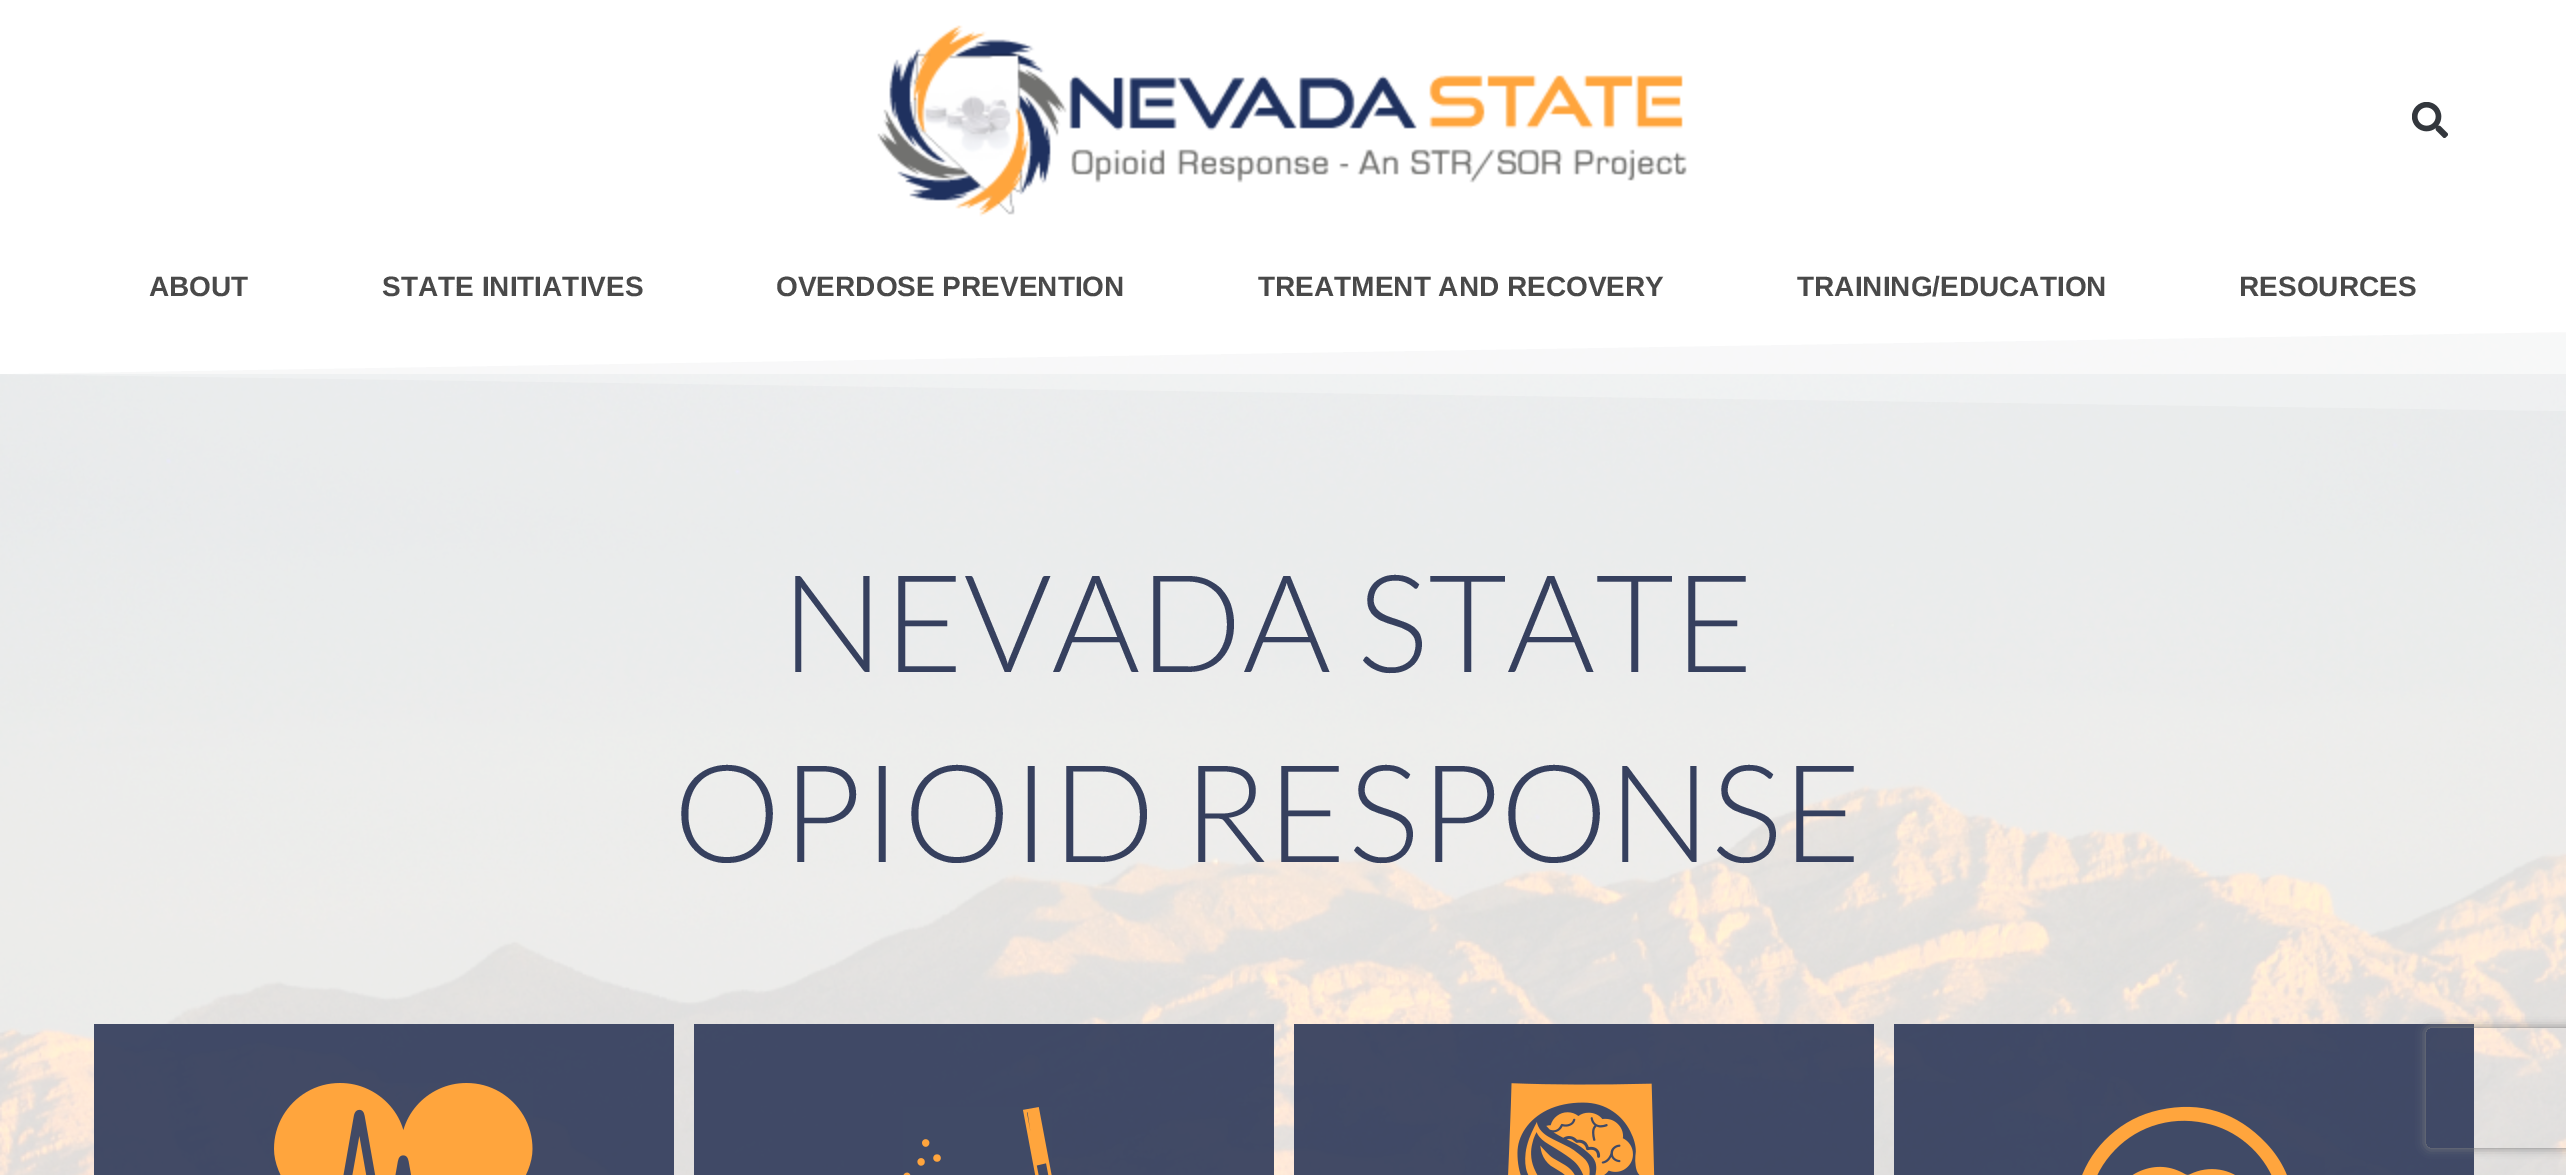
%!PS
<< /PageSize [2566 1175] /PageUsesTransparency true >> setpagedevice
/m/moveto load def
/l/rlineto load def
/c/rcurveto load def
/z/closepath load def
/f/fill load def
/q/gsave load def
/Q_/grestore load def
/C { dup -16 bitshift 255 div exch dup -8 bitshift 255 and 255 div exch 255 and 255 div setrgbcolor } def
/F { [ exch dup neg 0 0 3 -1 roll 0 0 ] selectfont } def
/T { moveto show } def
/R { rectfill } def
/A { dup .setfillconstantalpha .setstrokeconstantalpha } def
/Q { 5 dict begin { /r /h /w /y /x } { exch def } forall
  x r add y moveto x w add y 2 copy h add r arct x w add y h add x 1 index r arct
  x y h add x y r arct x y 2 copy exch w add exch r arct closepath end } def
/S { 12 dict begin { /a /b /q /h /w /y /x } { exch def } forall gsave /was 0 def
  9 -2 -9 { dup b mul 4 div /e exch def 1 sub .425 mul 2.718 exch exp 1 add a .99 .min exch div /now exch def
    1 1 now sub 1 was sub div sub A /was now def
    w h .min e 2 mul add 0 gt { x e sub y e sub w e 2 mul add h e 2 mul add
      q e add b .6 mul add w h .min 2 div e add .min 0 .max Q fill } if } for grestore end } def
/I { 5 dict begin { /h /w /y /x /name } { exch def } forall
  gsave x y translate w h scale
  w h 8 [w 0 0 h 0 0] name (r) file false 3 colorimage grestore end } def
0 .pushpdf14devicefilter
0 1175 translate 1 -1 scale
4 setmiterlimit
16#FFFFFF C
0 0 2566 1175 R
(1.rgb) 877 25 810 192 I
(2.rgb) 2412 102 36 36 I
16#EAEAEA C
2447 332 119 2 R
/LiberationSans-Bold 28 F
16#494949 C
(ABOUT) 149 296 T
(STATE INITIATIVES) 382 296 T
(OVERDOSE PREVENTION) 776 296 T
(TREATMENT AND RECOVERY) 1258 296 T
(TRAINING/EDUCATION) 1797 296 T
(RESOURCES) 2239 296 T
(3.rgb) 0 334 2566 841 I
16#FFFFFF C
2566 332 m -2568 0 l 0 42 l z f
0.5 A
13 332 2553 42 R
0.25 A
-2 332 m 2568 0 l 0 79 l -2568 -37 l z f
/Lato-Light 136 F
1 A
16#36405E C
(NEVADA STATE) 781 672 T
(OPIOID RESPONSE) 673 862 T
0.94 A
94 1024 580 151 R
1 A
(4.rgb) 274 1083 259 92 I
0.94 A
694 1024 580 151 R
1 A
(5.rgb) 903 1107 149 68 I
0.94 A
1294 1024 580 151 R
1 A
(6.rgb) 1508 1083 147 92 I
0.94 A
1894 1024 580 151 R
1 A
(7.rgb) 2082 1106 205 69 I
q
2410 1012 m 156 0 l 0 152 l -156 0 l z 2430 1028 m 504 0 l 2 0 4 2 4 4 c 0 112 l 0 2 -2 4 -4 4 c -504 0 l -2 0 -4 -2 -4 -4 c 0 -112 l 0 -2 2 -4 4 -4 c z eoclip newpath
16#808080 C
2426 1028 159 120 4 5 1 S
Q_
.poppdf14devicefilter showpage
